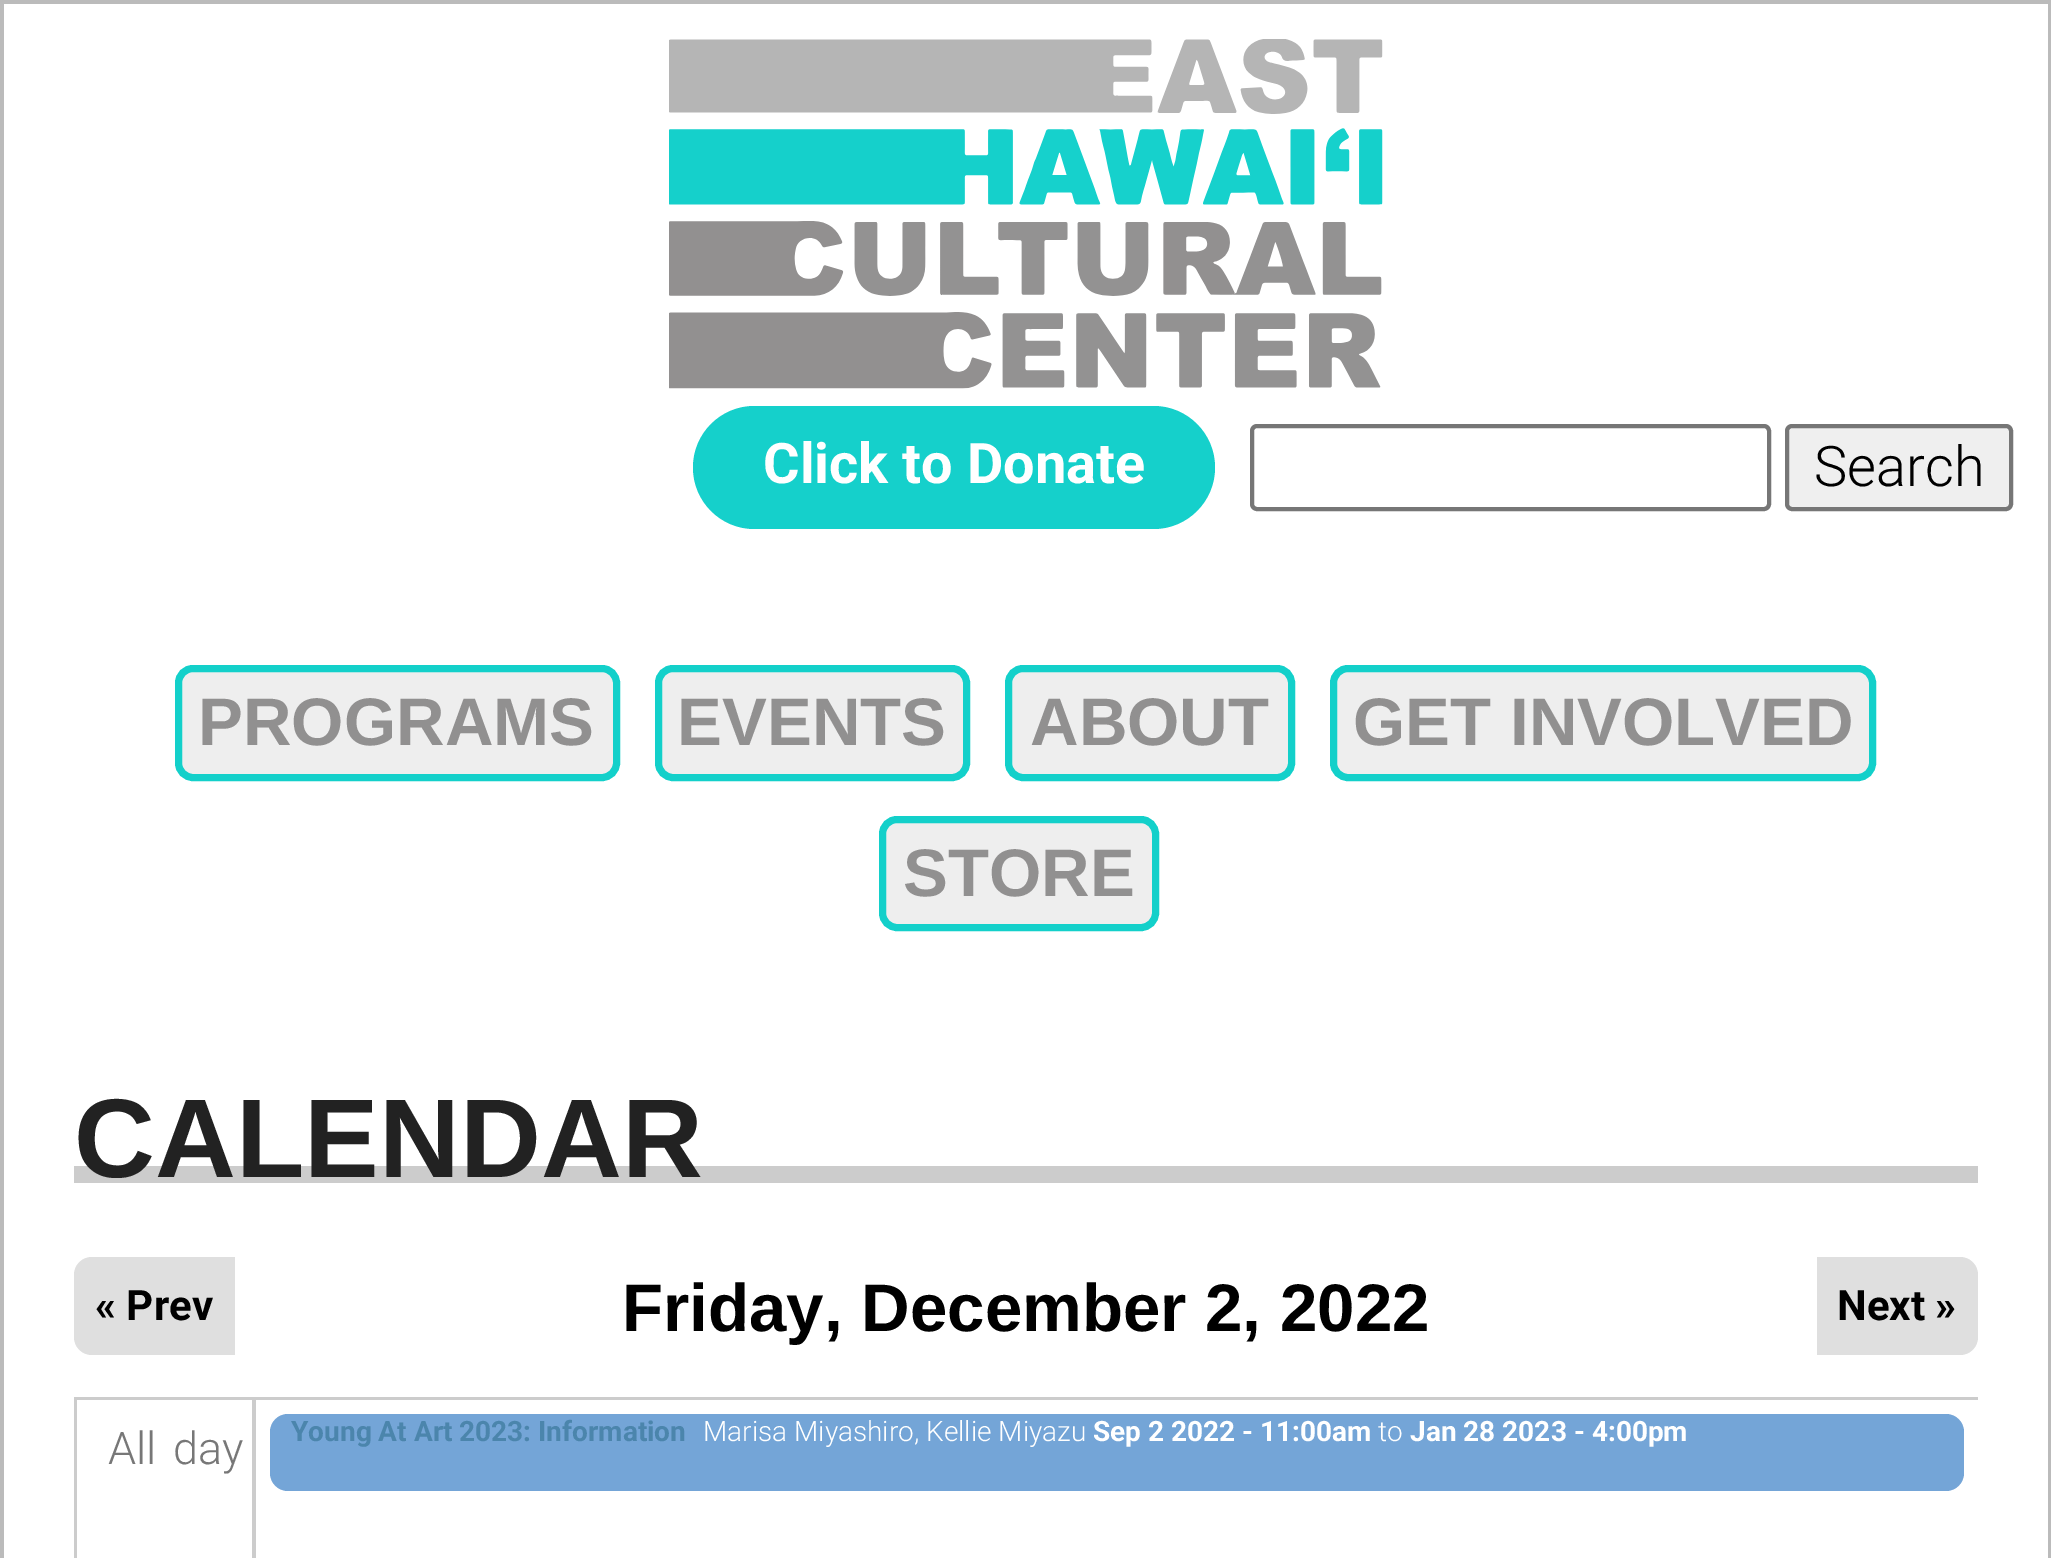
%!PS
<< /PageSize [2051 1558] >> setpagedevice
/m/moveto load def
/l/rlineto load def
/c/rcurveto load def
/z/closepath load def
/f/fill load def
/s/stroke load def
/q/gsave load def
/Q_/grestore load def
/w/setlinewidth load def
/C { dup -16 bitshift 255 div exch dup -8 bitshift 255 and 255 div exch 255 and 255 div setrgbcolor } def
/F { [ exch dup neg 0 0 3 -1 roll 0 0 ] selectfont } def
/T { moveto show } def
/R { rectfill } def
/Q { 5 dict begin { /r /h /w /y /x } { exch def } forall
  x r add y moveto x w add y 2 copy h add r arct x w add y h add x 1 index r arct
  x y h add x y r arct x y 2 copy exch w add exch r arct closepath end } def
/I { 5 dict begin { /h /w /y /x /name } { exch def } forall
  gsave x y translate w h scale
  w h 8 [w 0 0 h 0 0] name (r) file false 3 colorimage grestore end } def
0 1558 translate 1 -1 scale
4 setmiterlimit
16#FFFFFF C
0 0 2051 1558 R
16#BBBBBB C
0 0 2051 4 R
2048 0 3 1558 R
0 0 4 1558 R
(1.rgb) 669 39 714 350 I
16#15D0CB C
693 406 522 123 61.5 Q f
/Roboto-Bold 56 F
16#FFFFFF C
(Click to Donate) 763 483 T
16#767676 C
4 w
1252 426 517 83 5 Q s
16#EFEFEF C
1787 426 224 83 5 Q q f Q_
16#767676 C
s
/Roboto-Light 56 F
16#000000 C
(Search) 1814 486 T
16#EEEEEE C
178.5 668.5 438 109 14.5 Q q f Q_
16#13D0CA C
7 w
s
/LiberationSans-Bold 67.25 F
16#919090 C
(PROGRAMS) 198 745 T
16#EEEEEE C
658.5 668.5 308 109 14.5 Q q f Q_
16#13D0CA C
s
16#919090 C
(EVENTS) 677 745 T
16#EEEEEE C
1008.5 668.5 283 109 14.5 Q q f Q_
16#13D0CA C
s
16#919090 C
(ABOUT) 1030 745 T
16#EEEEEE C
1333.5 668.5 539 109 14.5 Q q f Q_
16#13D0CA C
s
16#919090 C
(GET INVOLVED) 1353 745 T
16#EEEEEE C
882.5 819.5 273 108 14.5 Q q f Q_
16#13D0CA C
s
16#919090 C
(STORE) 903 896 T
16#CCCCCC C
74 1166 1904 17 R
/LiberationSans-Bold 112 F
16#222222 C
(CALENDAR) 74 1177 T
/LiberationSans-Bold 67.25 F
16#000000 C
(Friday, December 2, 2022) 622 1331 T
16#DFDFDF C
92 1257 m 143 0 l 0 98 l -143 0 l -10 0 -18 -8 -18 -18 c 0 -62 l 0 -10 8 -18 18 -18 c z f
/Roboto-Bold 42 F
16#000000 C
(« Prev) 95 1320 T
16#DFDFDF C
1817 1257 m 143 0 l 10 0 18 8 18 18 c 0 62 l 0 10 -8 18 -18 18 c -143 0 l z f
16#000000 C
(Next ») 1837 1320 T
16#CCCCCC C
74 1397 1904 3 R
74 1397 4 161 R
16#FFFFFF C
77 1400 1 158 R
/Roboto-Light 45 F
16#777777 C
108 1464 m 6 0 32 (All day) widthshow
16#CCCCCC C
252 1400 4 158 R
16#74A5D7 C
270 1414 1694 77 18 Q f
/Roboto-Bold 28 F
16#4B85AC C
(Young At Art 2023: Information) 291 1441 T
/Roboto-Light 28 F
16#FFFFFF C
(Marisa Miyashiro, Kellie Miyazu) 703 1441 T
/Roboto-Bold 28 F
(Sep 2 2022 - 11:00am) 1093 1441 T
/Roboto-Light 28 F
(to) 1378 1441 T
/Roboto-Bold 28 F
(Jan 28 2023 - 4:00pm) 1410 1441 T
showpage
